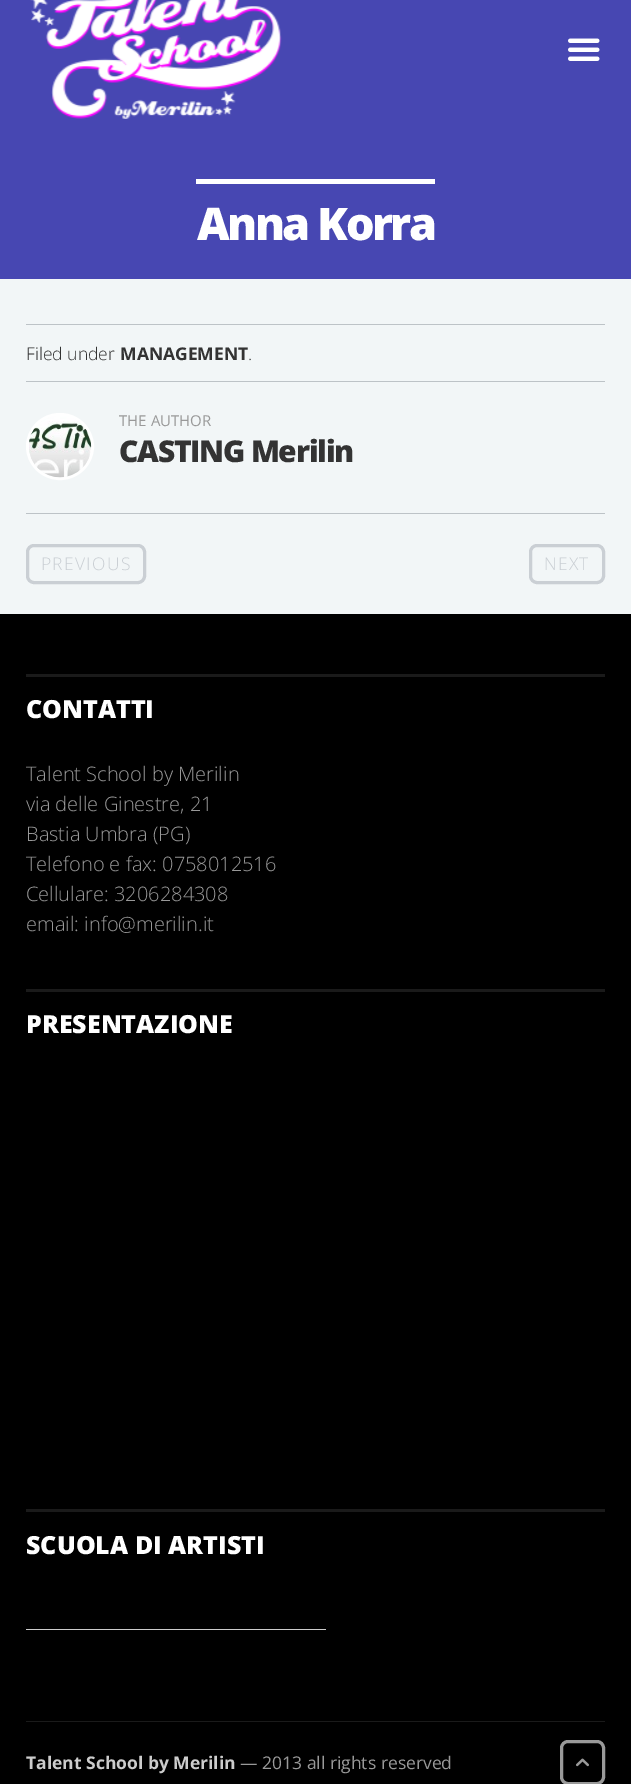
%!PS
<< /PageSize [631 1784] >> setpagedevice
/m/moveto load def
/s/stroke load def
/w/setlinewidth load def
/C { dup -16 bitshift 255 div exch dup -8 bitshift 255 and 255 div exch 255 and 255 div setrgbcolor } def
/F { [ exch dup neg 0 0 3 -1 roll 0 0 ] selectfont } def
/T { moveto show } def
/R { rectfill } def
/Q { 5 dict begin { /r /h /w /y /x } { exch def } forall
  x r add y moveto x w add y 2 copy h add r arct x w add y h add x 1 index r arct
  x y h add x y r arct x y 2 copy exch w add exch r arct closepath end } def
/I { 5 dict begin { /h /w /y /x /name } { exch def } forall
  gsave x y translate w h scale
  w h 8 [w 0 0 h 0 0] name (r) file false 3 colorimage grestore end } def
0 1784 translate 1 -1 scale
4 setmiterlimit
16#F2F6F7 C
0 0 631 1784 R
16#4747B2 C
0 0 631 279 R
(1.rgb) 30 0 252 119 I
(2.rgb) 568 38 32 23 I
16#FFFFFF C
196 179 239 5 R
/OpenSans-ExtraBold 45 F
197 240 m -2.5 0 (Anna Korra) ashow
16#BDC3C7 C
26 324 579 1 R
26 381 579 1 R
/OpenSans-Light 17.5 F
16#333333 C
(Filed under) 26 360 T
/OpenSans-Bold 17.5 F
(MANAGEMENT) 120 360 T
/OpenSans-Light 17.5 F
(.) 248 360 T
16#BDC3C7 C
26 513 579 1 R
16#FFFFFF C
3 w
27.5 414.5 65 64 32 Q s
(3.rgb) 29 416 63 62 I
/OpenSans-Regular 15 F
16#999999 C
(THE AUTHOR) 119 426 T
/OpenSans-ExtraBold 30 F
16#333333 C
119 462 m -1.25 0 (CASTING Merilin) ashow
16#CACFD4 C
27.5 545.5 117 37 6.5 Q s
/OpenSans-Light 17.5 F
41 570 m 1.25 0 (PREVIOUS) ashow
530.5 545.5 73 37 6.5 Q s
544 570 m 1.25 0 (NEXT) ashow
16#000000 C
0 614 631 1170 R
16#1A1A1A C
26 674 579 3 R
/OpenSans-ExtraBold 25 F
16#FFFFFF C
(CONTATTI) 26 718 T
/OpenSans-Light 20 F
16#999999 C
(Talent School by Merilin) 26 781 T
(via delle Ginestre, 21) 26 811 T
(Bastia Umbra \(PG\)) 26 841 T
(Telefono e fax: 0758012516) 26 871 T
(Cellulare: 3206284308) 26 901 T
(email: info@merilin.it) 26 931 T
16#1A1A1A C
26 989 579 3 R
/OpenSans-ExtraBold 25 F
16#FFFFFF C
(PRESENTAZIONE) 26 1033 T
16#1A1A1A C
26 1509 579 3 R
16#FFFFFF C
(SCUOLA DI ARTISTI) 26 1554 T
16#CCCCCC C
26 1629 300 1 R
16#1A1A1A C
26 1721 579 1 R
/OpenSans-Bold 17.5 F
16#CCCCCC C
(Talent School by Merilin) 26 1769 T
/OpenSans-Regular 17.5 F
16#999999 C
(— 2013 all rights reserved) 240 1769 T
561.5 1741.5 42 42 6.5 Q s
(4.rgb) 576 1758 13 9 I
showpage
